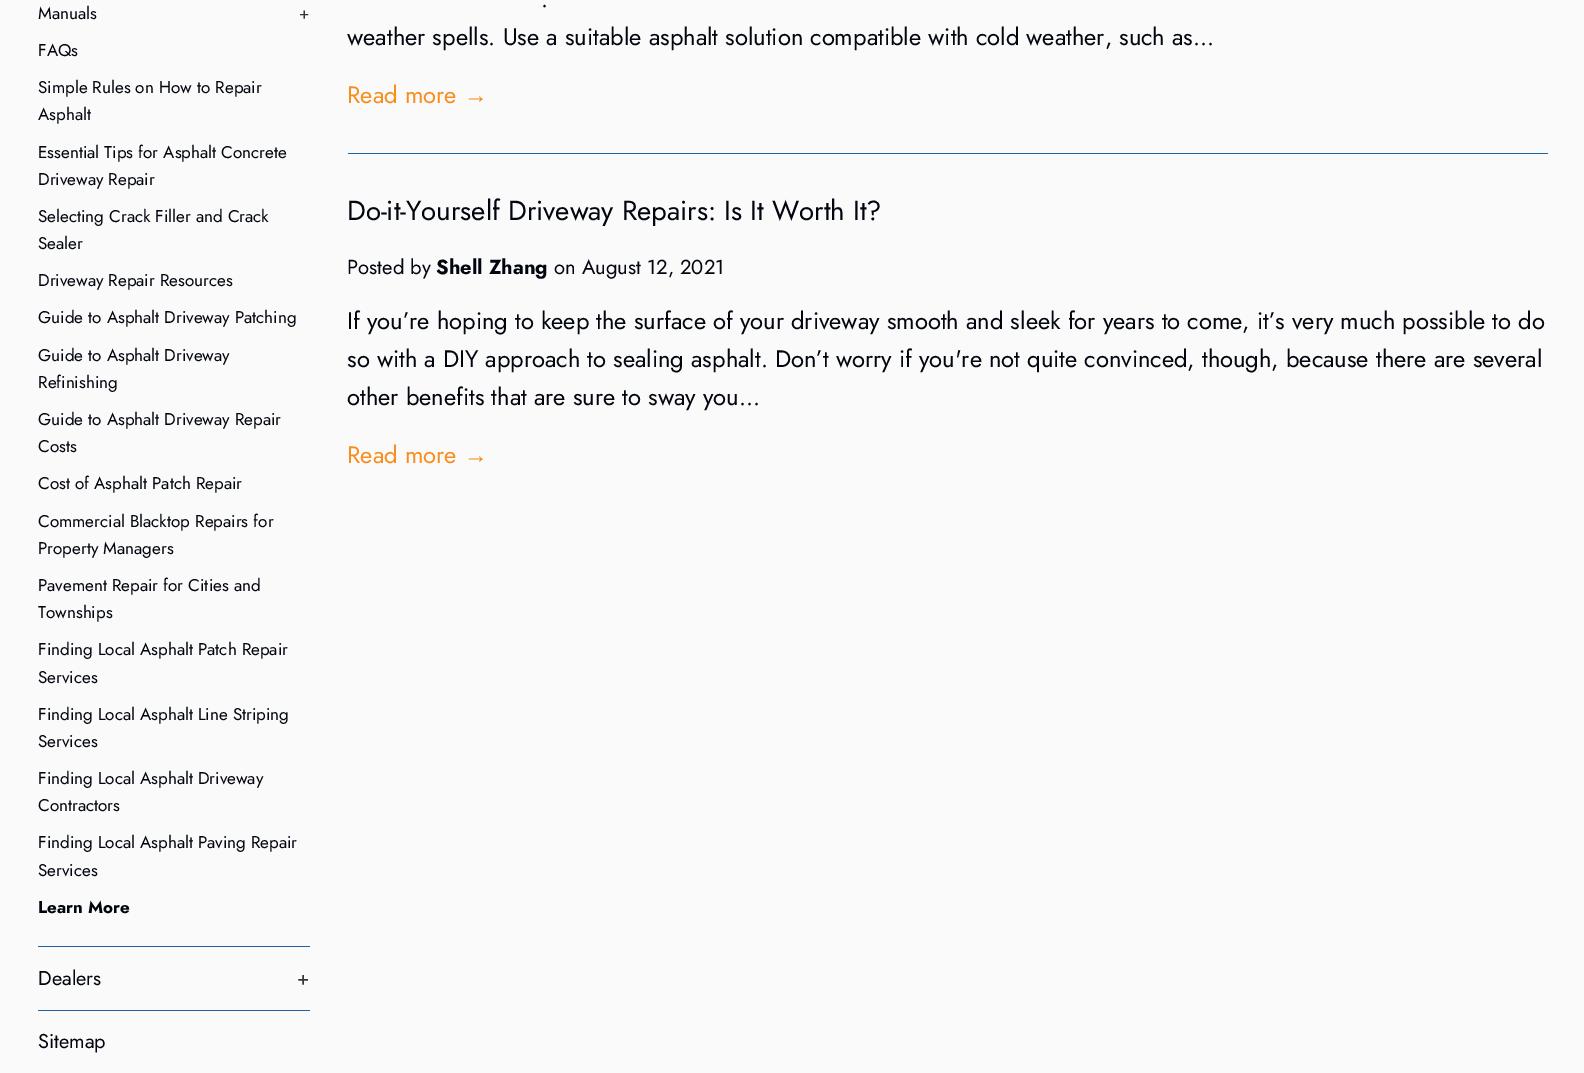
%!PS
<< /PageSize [1584 1073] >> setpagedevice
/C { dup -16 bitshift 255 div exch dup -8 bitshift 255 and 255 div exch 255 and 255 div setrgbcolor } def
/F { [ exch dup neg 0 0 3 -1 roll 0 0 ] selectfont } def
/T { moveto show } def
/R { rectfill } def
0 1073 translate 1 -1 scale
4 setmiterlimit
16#FAFAFA C
0 0 1584 1073 R
16#21629C C
38 946 272 1 R
/Jost-Regular 17 F
16#01050E C
(Manuals) 38 19 T
16#33363D C
(+) 299 19 T
16#01050E C
(FAQs) 38 56 T
(Simple Rules on How to Repair) 38 93 T
(Asphalt) 38 120 T
(Essential Tips for Asphalt Concrete) 38 158 T
(Driveway Repair) 38 185 T
(Selecting Crack Filler and Crack) 38 222 T
(Sealer) 38 249 T
(Driveway Repair Resources) 38 286 T
(Guide to Asphalt Driveway Patching) 38 323 T
(Guide to Asphalt Driveway) 38 361 T
(Refinishing) 38 388 T
(Guide to Asphalt Driveway Repair) 38 425 T
(Costs) 38 452 T
(Cost of Asphalt Patch Repair) 38 489 T
(Commercial Blacktop Repairs for) 38 527 T
(Property Managers) 38 554 T
(Pavement Repair for Cities and) 38 591 T
(Townships) 38 618 T
(Finding Local Asphalt Patch Repair) 38 655 T
(Services) 38 683 T
(Finding Local Asphalt Line Striping) 38 720 T
(Services) 38 747 T
(Finding Local Asphalt Driveway) 38 784 T
(Contractors) 38 811 T
(Finding Local Asphalt Paving Repair) 38 848 T
(Services) 38 876 T
/Jost-Bold 17 F
(Learn More) 38 913 T
16#21629C C
38 1010 272 1 R
/Jost-Regular 20 F
16#01050E C
(Dealers) 38 985 T
16#33363D C
(+) 297 985 T
16#01050E C
(Sitemap) 38 1048 T
/Jost-Regular 23.75 F
(.) 541 7 T
(weather spells. Use a suitable asphalt solution compatible with cold weather, such as...) 347 45 T
16#F78E1E C
(Read more) 347 103 T
/LiberationSans-Regular 23.75 F
(→) 464 103 T
16#21629C C
348 153 1200 1 R
/Jost-Regular 27.5 F
16#01050E C
(Do-it-Yourself Driveway Repairs: Is It Worth It?) 347 220 T
/Jost-Regular 20.25 F
(Posted by) 347 274 T
/Jost-Bold 20.25 F
(Shell Zhang) 436 274 T
/Jost-Regular 20.25 F
(on August 12, 2021) 554 274 T
/Jost-Regular 23.75 F
(If you’re hoping to keep the surface of your driveway smooth and sleek for years to come, it’s very much possible to do) 347 329 T
(so with a DIY approach to sealing asphalt. Don’t worry if you're not quite convinced, though, because there are several) 347 367 T
(other benefits that are sure to sway you...) 347 405 T
16#F78E1E C
(Read more) 347 463 T
/LiberationSans-Regular 23.75 F
(→) 464 463 T
showpage
